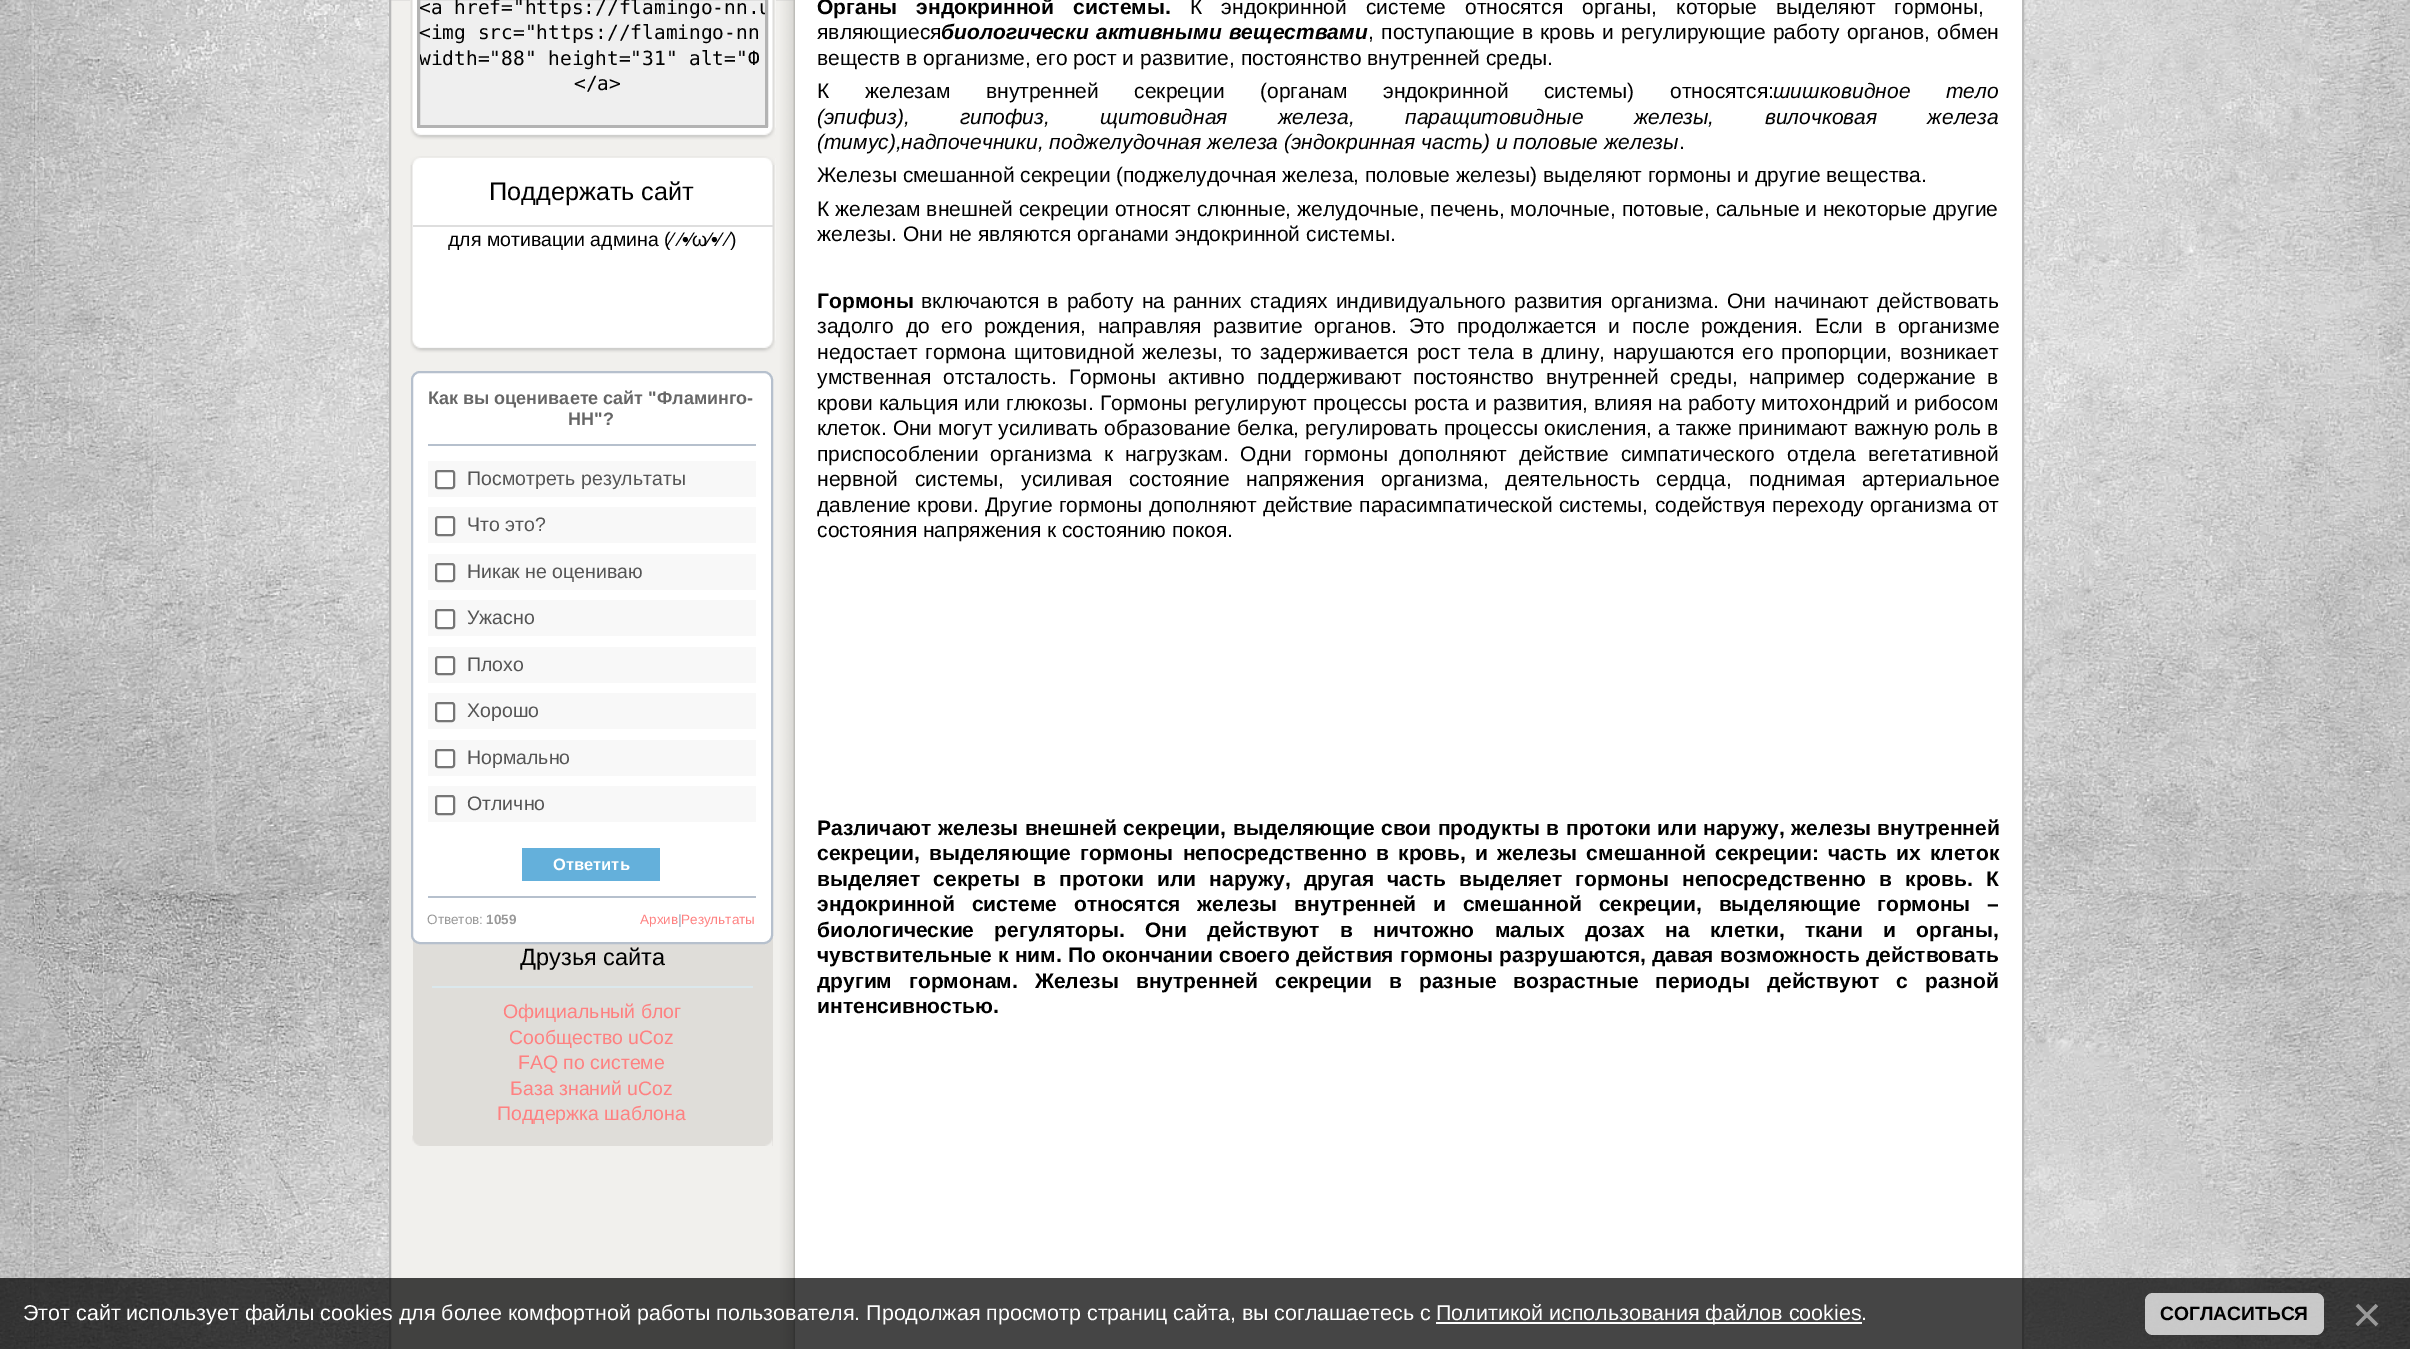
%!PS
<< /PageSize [2410 1349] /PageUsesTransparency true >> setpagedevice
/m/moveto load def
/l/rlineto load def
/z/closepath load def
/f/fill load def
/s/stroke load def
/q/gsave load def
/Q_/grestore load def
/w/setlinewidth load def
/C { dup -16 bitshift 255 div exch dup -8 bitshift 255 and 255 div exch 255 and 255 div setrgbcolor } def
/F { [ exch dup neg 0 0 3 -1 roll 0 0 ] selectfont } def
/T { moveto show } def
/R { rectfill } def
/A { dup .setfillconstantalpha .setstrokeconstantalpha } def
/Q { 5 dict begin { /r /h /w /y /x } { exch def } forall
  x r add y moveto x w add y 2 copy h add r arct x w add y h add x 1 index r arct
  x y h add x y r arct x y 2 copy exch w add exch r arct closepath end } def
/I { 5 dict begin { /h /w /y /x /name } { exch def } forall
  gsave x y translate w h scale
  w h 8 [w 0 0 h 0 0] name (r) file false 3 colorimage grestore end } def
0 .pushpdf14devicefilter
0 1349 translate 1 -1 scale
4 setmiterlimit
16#FFFFFF C
0 0 2410 1349 R
(1.rgb) 0 0 2410 1349 I
(2.rgb) 391 0 404 1349 I
16#B9B9B9 C
2 w
390 -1 1633 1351 rectstroke
16#FFFFFF C
795 0 1227 1349 R
412 0 364 135 R
(3.rgb) 410 0 366 135 I
16#EFEFEF C
418.5 -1.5 m 348 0 l 0 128 l -348 0 l z q f Q_
16#B3B3B3 C
3 w
s
q
420 0 345 125 rectclip
/DejaVuSansMono-Regular 19.5 F
16#000000 C
(<a href="https://flamingo-nn.u) 419 14 T
Q_
/DejaVuSansMono-Regular 19.5 F
16#000000 C
(<img src="https://flamingo-nn) 419 39 T
q
420 0 345 125 rectclip
(width="88" height="31" alt="Ф) 419 65 T
Q_
(</a>) 574 90 T
(4.rgb) 410 127 366 13 I
16#FFFFFF C
412 158 364 190 R
(5.rgb) 410 157 366 191 I
(6.rgb) 410 156 366 9 I
16#DEDEDE C
413 225 360 2 R
/LiberationSans-Regular 25.25 F
16#000000 C
(Поддержать сайт) 489 200 T
/LiberationSans-Regular 19.5 F
(для мотивации админа \(⁄ ⁄•⁄ω⁄•⁄ ⁄\)) 448 246 T
(7.rgb) 410 340 366 13 I
16#DFDDD9 C
413 935 360 211 R
16#FFFFFF C
412 372 360 571 8 Q q f Q_
16#B6C0CD C
2 w
s
428 444 328 2 R
/LiberationSans-Bold 18 F
16#666666 C
(Как вы оцениваете сайт "Фламинго-) 428 404 T
(НН"?) 568 425 T
16#F8F8F8 C
428 461 328 36 R
16#FFFFFF C
436 471 18 17 2 Q q f Q_
16#767676 C
s
/LiberationSans-Regular 19.5 F
16#555555 C
(Посмотреть результаты) 467 485 T
16#F8F8F8 C
428 507 328 36 R
16#FFFFFF C
436 517 18 18 2 Q q f Q_
16#767676 C
s
16#555555 C
(Что это?) 467 531 T
16#F8F8F8 C
428 554 328 36 R
16#FFFFFF C
436 564 18 17 2 Q q f Q_
16#767676 C
s
16#555555 C
(Никак не оцениваю) 467 578 T
16#F8F8F8 C
428 600 328 36 R
16#FFFFFF C
436 610 18 18 2 Q q f Q_
16#767676 C
s
16#555555 C
(Ужасно) 467 624 T
16#F8F8F8 C
428 647 328 36 R
16#FFFFFF C
436 657 18 17 2 Q q f Q_
16#767676 C
s
16#555555 C
(Плохо) 467 671 T
16#F8F8F8 C
428 693 328 36 R
16#FFFFFF C
436 703 18 18 2 Q q f Q_
16#767676 C
s
16#555555 C
(Хорошо) 467 717 T
16#F8F8F8 C
428 740 328 36 R
16#FFFFFF C
436 750 18 17 2 Q q f Q_
16#767676 C
s
16#555555 C
(Нормально) 467 764 T
16#F8F8F8 C
428 786 328 36 R
16#FFFFFF C
436 796 18 18 2 Q q f Q_
16#767676 C
s
16#555555 C
(Отлично) 467 810 T
16#64B0DB C
522 848 138 33 R
/LiberationSans-Bold 16.5 F
16#FFFFFF C
(Ответить) 553 870 T
16#B6C0CD C
428 896 328 2 R
/LiberationSans-Regular 13.5 F
16#999999 C
(Ответов:) 427 924 T
/LiberationSans-Bold 13.5 F
(1059) 486 924 T
/LiberationSans-Regular 13.5 F
16#FE8181 C
(Архив) 640 924 T
/LiberationSans-Bold 13.5 F
16#B6C0CD C
(|) 678 924 T
/LiberationSans-Regular 13.5 F
16#FE8181 C
(Результаты) 681 924 T
(8.rgb) 412 1135 361 11 I
/LiberationSans-Regular 23.5 F
16#000000 C
(Друзья сайта) 520 965 T
16#DBE8ED C
432 986 321 2 R
/LiberationSans-Regular 19.5 F
16#FE8181 C
(Официальный блог) 503 1018 T
(Сообщество uCoz) 509 1044 T
(FAQ по системе) 518 1069 T
(База знаний uCoz) 510 1095 T
(Поддержка шаблона) 497 1120 T
/LiberationSans-Bold 21 F
16#000000 C
817 14 m 13.25 0 32 (Органы эндокринной системы.) widthshow
/LiberationSans-Regular 21 F
1190 14 m 13.25 0 32 (К эндокринной системе относятся органы, которые выделяют гормоны,) widthshow
(являющиеся) 817 39 T
/LiberationSans-BoldItalic 21 F
941 39 m 1.5 0 32 (биологически активными веществами) widthshow
/LiberationSans-Regular 21 F
1368 39 m 1.5 0 32 (, поступающие в кровь и регулирующие работу органов, обмен) widthshow
(веществ в организме, его рост и развитие, постоянство внутренней среды.) 817 65 T
817 98 m 29.75 0 32 (К железам внутренней секреции \(органам эндокринной системы\) относятся:) widthshow
/LiberationSans-Italic 21 F
1773 98 m 29.75 0 32 (шишковидное тело) widthshow
817 124 m 44.5 0 32 (\(эпифиз\), гипофиз, щитовидная железа, паращитовидные железы, вилочковая железа) widthshow
(\(тимус\),надпочечники, поджелудочная железа \(эндокринная часть\) и половые железы) 817 149 T
/LiberationSans-Regular 21 F
(.) 1679 149 T
(Железы смешанной секреции \(поджелудочная железа, половые железы\) выделяют гормоны и другие вещества.) 817 182 T
817 216 m .1 0 32 (К железам внешней секреции относят слюнные, желудочные, печень, молочные, потовые, сальные и некоторые другие) widthshow
(железы. Они не являются органами эндокринной системы.) 817 241 T
/LiberationSans-Bold 21 F
(Гормоны) 817 308 T
/LiberationSans-Regular 21 F
921 308 m 2.25 0 32 (включаются в работу на ранних стадиях индивидуального развития организма. Они начинают действовать) widthshow
817 333 m 5.9 0 32 (задолго до его рождения, направляя развитие органов. Это продолжается и после рождения. Если в организме) widthshow
817 359 m 2.25 0 32 (недостает гормона щитовидной железы, то задерживается рост тела в длину, нарушаются его пропорции, возникает) widthshow
817 384 m 6 0 32 (умственная отсталость. Гормоны активно поддерживают постоянство внутренней среды, например содержание в) widthshow
817 410 m .5 0 32 (крови кальция или глюкозы. Гормоны регулируют процессы роста и развития, влияя на работу митохондрий и рибосом) widthshow
817 435 m .25 0 32 (клеток. Они могут усиливать образование белка, регулировать процессы окисления, а также принимают важную роль в) widthshow
817 461 m 5.9 0 32 (приспособлении организма к нагрузкам. Одни гормоны дополняют действие симпатического отдела вегетативной) widthshow
817 486 m 11 0 32 (нервной системы, усиливая состояние напряжения организма, деятельность сердца, поднимая артериальное) widthshow
817 512 m .5 0 32 (давление крови. Другие гормоны дополняют действие парасимпатической системы, содействуя переходу организма от) widthshow
(состояния напряжения к состоянию покоя.) 817 537 T
/LiberationSans-Bold 21 F
817 835 m .75 0 32 (Различают железы внешней секреции, выделяющие свои продукты в протоки или наружу, железы внутренней) widthshow
817 860 m 3.4 0 32 (секреции, выделяющие гормоны непосредственно в кровь, и железы смешанной секреции: часть их клеток) widthshow
817 886 m 7.25 0 32 (выделяет секреты в протоки или наружу, другая часть выделяет гормоны непосредственно в кровь. К) widthshow
817 911 m 11 0 32 (эндокринной системе относятся железы внутренней и смешанной секреции, выделяющие гормоны –) widthshow
817 937 m 14.4 0 32 (биологические регуляторы. Они действуют в ничтожно малых дозах на клетки, ткани и органы,) widthshow
817 962 m .25 0 32 (чувствительные к ним. По окончании своего действия гормоны разрушаются, давая возможность действовать) widthshow
817 988 m 11.25 0 32 (другим гормонам. Железы внутренней секреции в разные возрастные периоды действуют с разной) widthshow
(интенсивностью.) 817 1013 T
0.73 A
0 1278 2410 71 R
/LiberationSans-Regular 21.45 F
1 A
16#FFFFFF C
(Этот сайт использует файлы cookies для более комфортной работы пользователя. Продолжая просмотр страниц сайта, вы соглашаетесь с) 23 1320 T
1436 1322 426 2 R
(Политикой использования файлов cookies.) 1436 1320 T
0.73 A
2145 1293 179 42 8 Q f
/LiberationSans-Bold 19.25 F
1 A
16#000000 C
(СОГЛАСИТЬСЯ) 2160 1320 T
/LiberationSans-Regular 51 F
16#999999 C
(×) 2352 1332 T
.poppdf14devicefilter showpage
